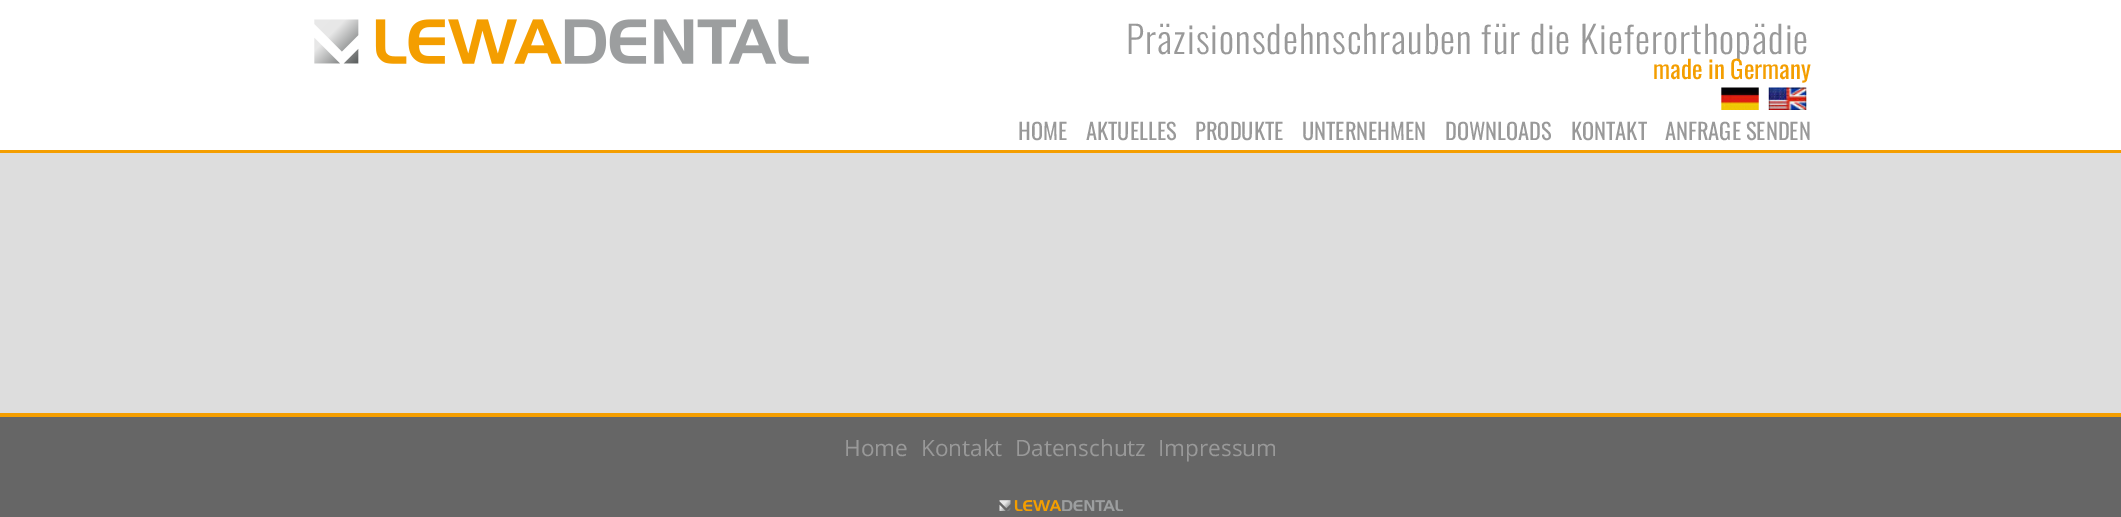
%!PS
<< /PageSize [2121 517] >> setpagedevice
/m/moveto load def
/C { dup -16 bitshift 255 div exch dup -8 bitshift 255 and 255 div exch 255 and 255 div setrgbcolor } def
/F { [ exch dup neg 0 0 3 -1 roll 0 0 ] selectfont } def
/T { moveto show } def
/R { rectfill } def
/I { 5 dict begin { /h /w /y /x /name } { exch def } forall
  gsave x y translate w h scale
  w h 8 [w 0 0 h 0 0] name (r) file false 3 colorimage grestore end } def
0 517 translate 1 -1 scale
4 setmiterlimit
16#DDDDDD C
0 0 2121 517 R
16#FFFFFF C
0 0 2121 150 R
16#F49E00 C
0 150 2121 3 R
(1.rgb) 314 19 495 45 I
/Oswald-Light 37.5 F
16#999999 C
1126 54 m 1.1 0 (Präzisionsdehnschrauben für die Kieferorthopädie) ashow
/Oswald-Regular 25 F
16#F49E00 C
(made in Germany) 1653 79 T
(2.rgb) 1721 87 38 23 I
(3.rgb) 1768 87 39 23 I
/Oswald-Regular 22.5 F
16#999999 C
(HOME) 1018 140 T
(AKTUELLES) 1086 140 T
(PRODUKTE) 1195 140 T
(UNTERNEHMEN) 1302 140 T
(DOWNLOADS) 1445 140 T
(KONTAKT) 1571 140 T
(ANFRAGE SENDEN) 1665 140 T
16#666666 C
0 417 2121 100 R
16#F49E00 C
0 413 2121 4 R
/OpenSans-Regular 22.5 F
16#999999 C
(Home) 844 456 T
(Kontakt) 921 456 T
(Datenschutz) 1015 456 T
(Impressum) 1158 456 T
(4.rgb) 999 500 124 11 I
showpage
